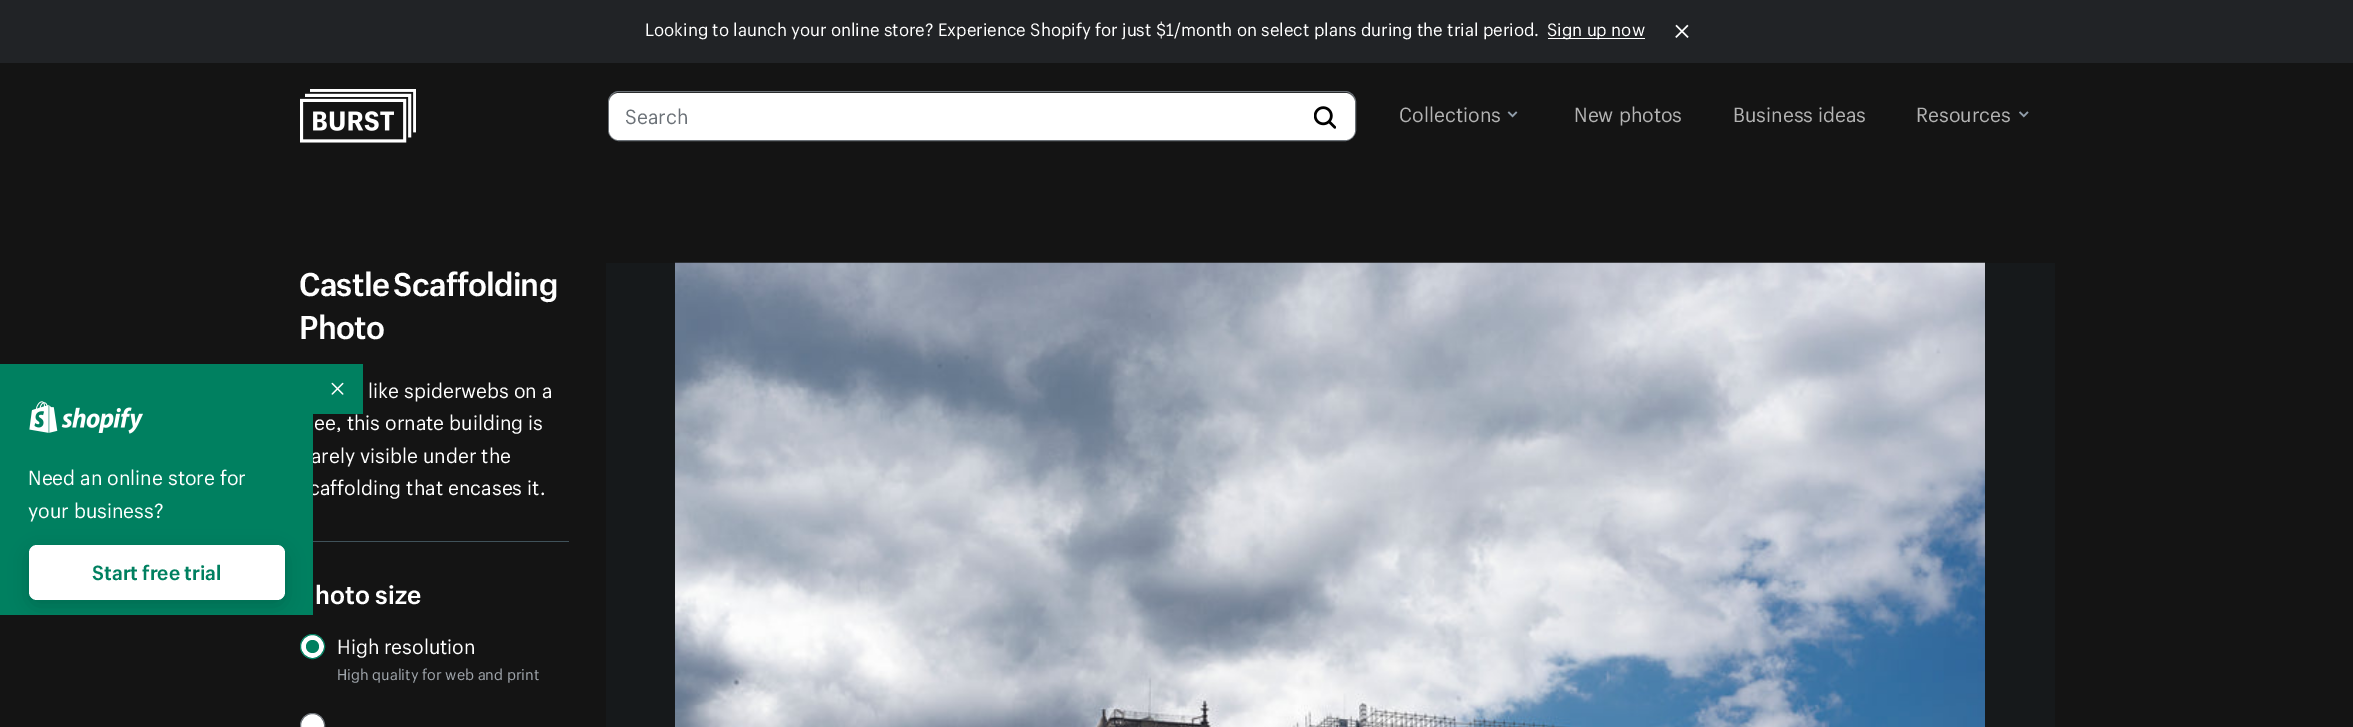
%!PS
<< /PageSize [2353 727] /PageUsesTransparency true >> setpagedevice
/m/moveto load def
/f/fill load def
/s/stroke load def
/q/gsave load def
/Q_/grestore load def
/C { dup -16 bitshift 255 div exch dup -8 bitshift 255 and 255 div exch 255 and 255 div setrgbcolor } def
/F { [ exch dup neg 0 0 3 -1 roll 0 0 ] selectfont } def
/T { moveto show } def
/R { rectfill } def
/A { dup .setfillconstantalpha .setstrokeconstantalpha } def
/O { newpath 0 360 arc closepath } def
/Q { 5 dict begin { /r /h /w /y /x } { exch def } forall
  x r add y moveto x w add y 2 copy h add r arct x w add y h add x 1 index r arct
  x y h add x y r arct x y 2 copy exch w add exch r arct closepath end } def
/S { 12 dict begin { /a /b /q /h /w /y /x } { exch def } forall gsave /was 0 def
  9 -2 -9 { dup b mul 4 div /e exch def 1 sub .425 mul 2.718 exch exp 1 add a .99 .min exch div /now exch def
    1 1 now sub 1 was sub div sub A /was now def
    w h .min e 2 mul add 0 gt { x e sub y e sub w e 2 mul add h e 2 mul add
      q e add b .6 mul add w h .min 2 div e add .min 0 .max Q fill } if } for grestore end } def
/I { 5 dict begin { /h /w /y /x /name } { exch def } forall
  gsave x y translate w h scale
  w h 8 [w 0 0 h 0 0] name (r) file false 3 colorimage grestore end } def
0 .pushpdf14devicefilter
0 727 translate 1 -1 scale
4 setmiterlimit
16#141414 C
0 0 2353 727 R
16#212326 C
0 0 2353 63 R
/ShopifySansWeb-Regular 17.5 F
16#FFFFFF C
(Looking to launch your online store? Experience Shopify for just $1/month on select plans during the trial period.) 645 36 T
1548 38 97 1 R
(Sign up now) 1547 36 T
(1.rgb) 1675 24 14 14 I
(2.rgb) 300 89 116 54 I
16#6B7177 C
608.5 91.5 747 49 10.5 Q s
16#FFFFFF C
609 93 746 47 10 Q f
/ShopifySansWeb-Regular 20 F
16#6B7177 C
(Search) 625 124 T
(3.rgb) 1314 106 22 23 I
16#B3B3B3 C
(Collections) 1399 122 T
(4.rgb) 1507 111 11 7 I
(New photos) 1574 122 T
(Business ideas) 1733 122 T
(Resources) 1916 122 T
(5.rgb) 2019 111 10 7 I
16#008060 C
313 364 50 50 R
(6.rgb) 331 382 13 13 I
16#FFFFFF C
(arely visible under the) 311 463 T
(caffolding that encases it.) 309 495 T
16#008060 C
0 364 313 251 R
(7.rgb) 29 401 114 33 I
16#FFFFFF C
(Need an online store for) 28 485 T
(your business?) 28 518 T
16#40525A C
313 541 256 1 R
16#FFFFFF C
312.5 646.5 12 O q f Q_
16#008060 C
s
16#000000 C
29 551 256 55 8 9.5 .15 S
16#FFFFFF C
29 545 256 55 8 Q f
/ShopifySansWeb-Bold 20 F
16#008060 C
(Start free trial) 92 580 T
/ShopifySansWeb-Bold 32.25 F
16#FFFFFF C
299 296 m -2 0 32 -.7 0 (Castle Scaffolding) awidthshow
299 339 m -.7 0 (Photo) ashow
/ShopifySansWeb-Regular 20 F
(like spiderwebs on a) 368 398 T
(ee, this ornate building is) 314 430 T
/ShopifySansWeb-Bold 25.5 F
(hoto size) 315 604 T
/ShopifySansWeb-Regular 20 F
(High resolution) 337 654 T
16#008060 C
312.5 646.5 6.5 O f
/ShopifySansWeb-Regular 15 F
16#9FA5AB C
(High quality for web and print) 337 680 T
16#FFFFFF C
312.5 725.5 12 O q f Q_
16#6B7177 C
s
16#16191B C
606 263 1449 464 R
(8.rgb) 675 262 1310 465 I
.poppdf14devicefilter showpage
